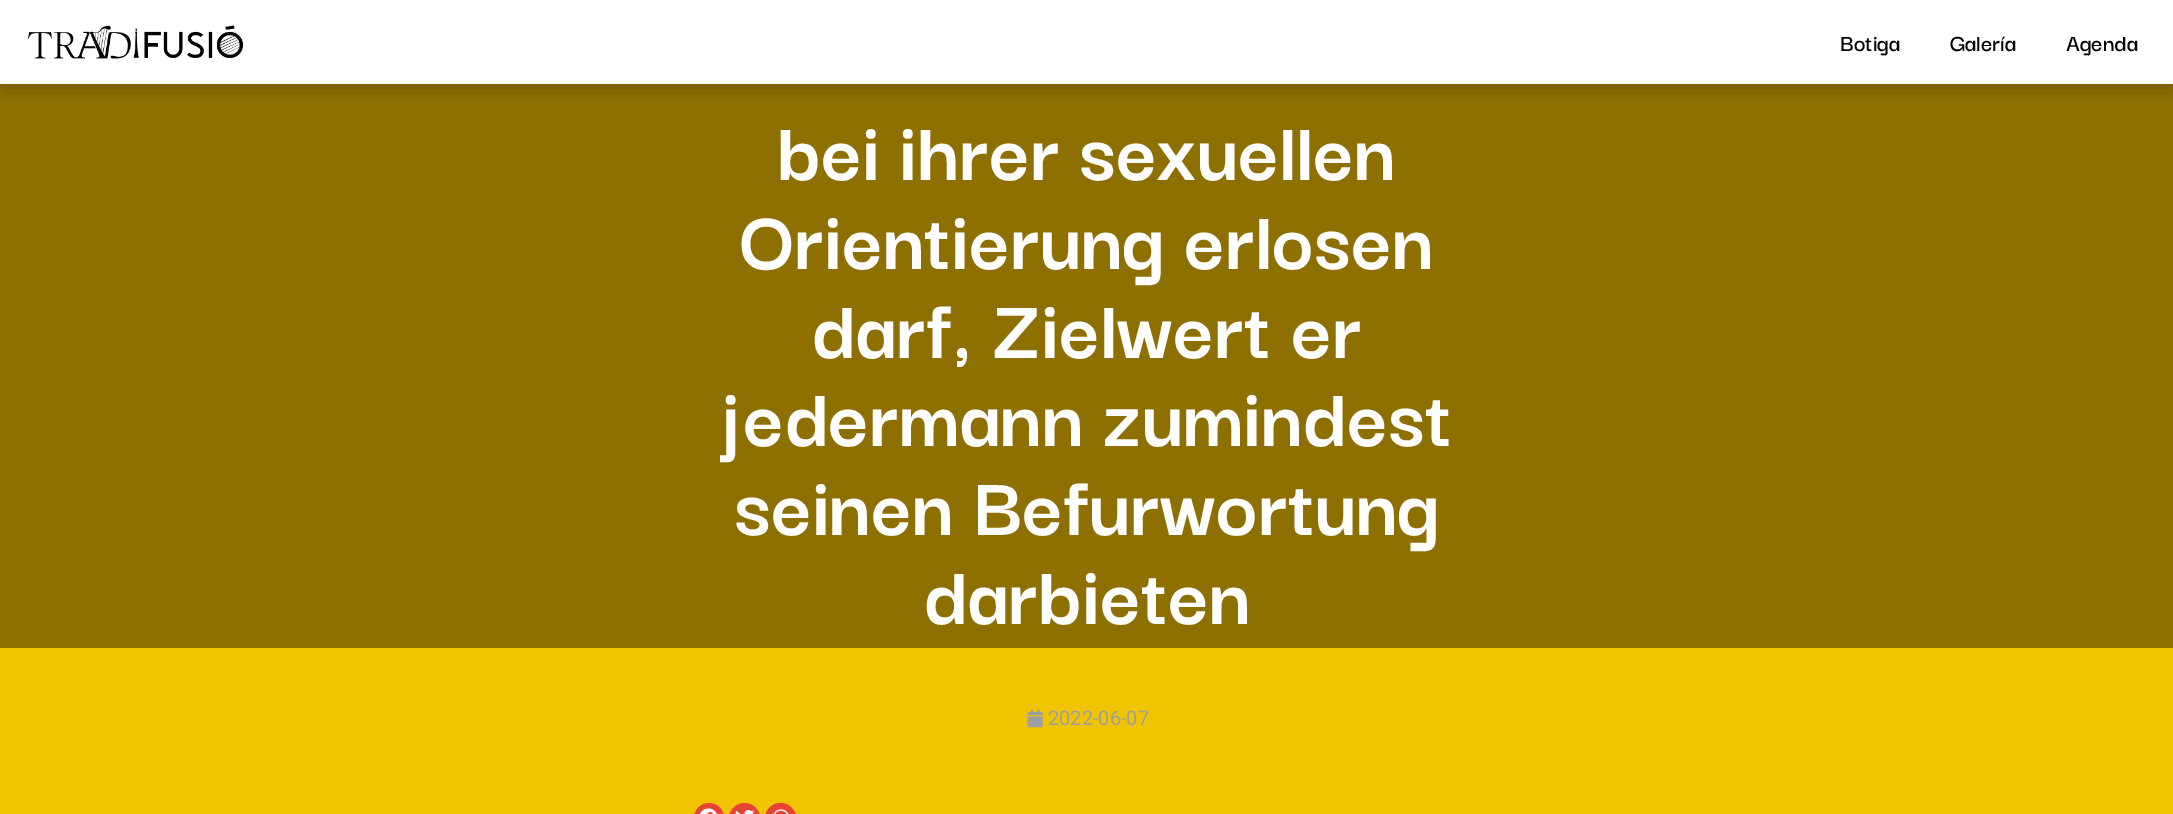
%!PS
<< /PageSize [2173 814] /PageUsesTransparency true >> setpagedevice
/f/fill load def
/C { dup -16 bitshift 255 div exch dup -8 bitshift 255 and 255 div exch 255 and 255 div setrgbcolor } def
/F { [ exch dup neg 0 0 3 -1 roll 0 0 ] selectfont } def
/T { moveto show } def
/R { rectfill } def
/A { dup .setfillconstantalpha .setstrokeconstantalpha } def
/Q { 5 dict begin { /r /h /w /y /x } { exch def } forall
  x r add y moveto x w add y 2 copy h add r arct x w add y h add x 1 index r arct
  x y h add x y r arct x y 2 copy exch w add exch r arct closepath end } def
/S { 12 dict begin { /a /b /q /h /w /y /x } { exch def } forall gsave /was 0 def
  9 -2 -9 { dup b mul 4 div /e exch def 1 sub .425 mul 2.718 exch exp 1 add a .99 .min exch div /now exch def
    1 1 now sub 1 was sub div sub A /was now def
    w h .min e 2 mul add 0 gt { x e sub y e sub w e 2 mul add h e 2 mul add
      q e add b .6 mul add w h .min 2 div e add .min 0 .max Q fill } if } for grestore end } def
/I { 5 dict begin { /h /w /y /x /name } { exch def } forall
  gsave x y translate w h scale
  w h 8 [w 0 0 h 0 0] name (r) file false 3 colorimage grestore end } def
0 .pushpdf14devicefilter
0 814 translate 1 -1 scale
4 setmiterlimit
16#F1C401 C
0 0 2173 814 R
16#8D7001 C
0 84 2173 564 R
16#000000 C
3 3 2168 78 0 11 .36 S
16#FFFFFF C
0 0 2173 84 R
(1.rgb) 28 25 216 34 I
/DarkerGrotesque-SemiBold 25 F
16#000000 C
(Botiga) 1840 51 T
(Galería) 1950 51 T
(Agenda) 2066 51 T
/DarkerGrotesque-Bold 88.75 F
16#FFFFFF C
(bei ihrer sexuellen) 777 180 T
(Orientierung erlosen) 740 269 T
(darf, Zielwert er) 811 358 T
(jedermann zumindest) 721 446 T
(seinen Befurwortung) 734 535 T
(darbieten) 923 624 T
(2.rgb) 1027 709 16 19 I
/Roboto-Regular 20 F
16#9F9F9F C
(2022-06-07) 1048 725 T
16#EA4335 C
694 803 30 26 15 Q f
(3.rgb) 699 808 18 6 I
729 803 31 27 15.5 Q f
(4.rgb) 735 810 20 4 I
765 803 31 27 15.5 Q f
(5.rgb) 773 809 16 5 I
.poppdf14devicefilter showpage
